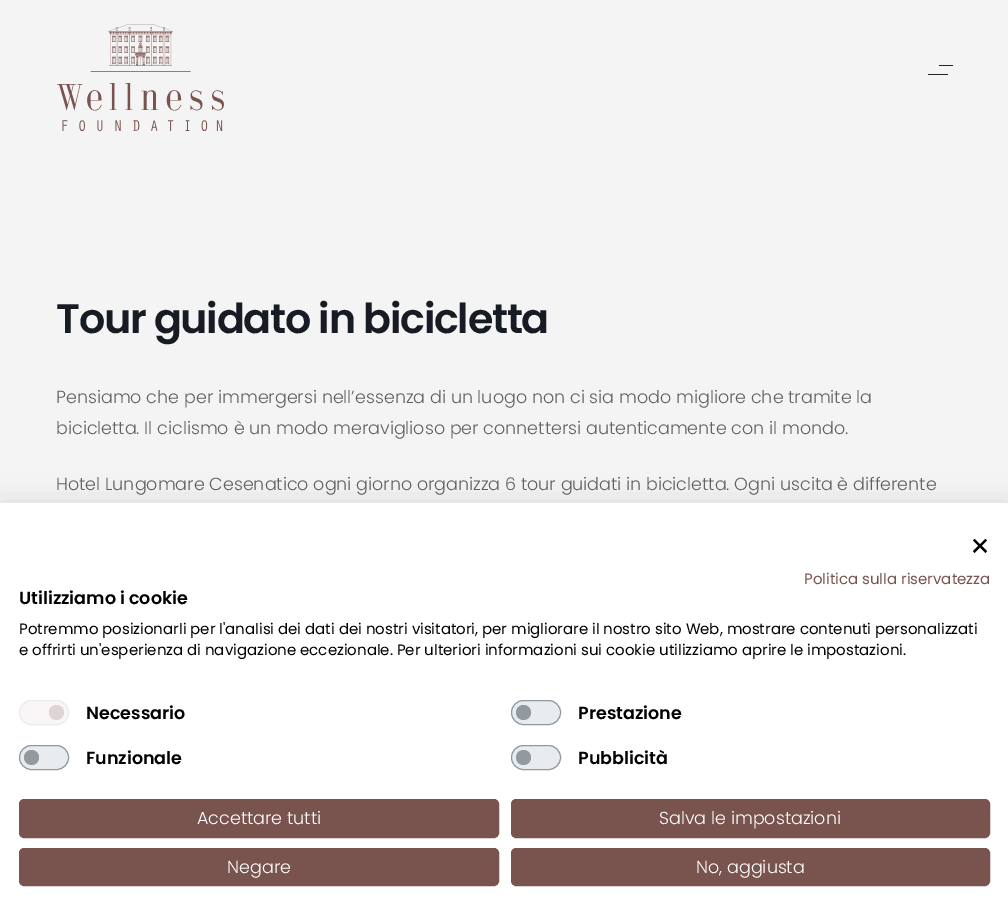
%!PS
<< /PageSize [1008 920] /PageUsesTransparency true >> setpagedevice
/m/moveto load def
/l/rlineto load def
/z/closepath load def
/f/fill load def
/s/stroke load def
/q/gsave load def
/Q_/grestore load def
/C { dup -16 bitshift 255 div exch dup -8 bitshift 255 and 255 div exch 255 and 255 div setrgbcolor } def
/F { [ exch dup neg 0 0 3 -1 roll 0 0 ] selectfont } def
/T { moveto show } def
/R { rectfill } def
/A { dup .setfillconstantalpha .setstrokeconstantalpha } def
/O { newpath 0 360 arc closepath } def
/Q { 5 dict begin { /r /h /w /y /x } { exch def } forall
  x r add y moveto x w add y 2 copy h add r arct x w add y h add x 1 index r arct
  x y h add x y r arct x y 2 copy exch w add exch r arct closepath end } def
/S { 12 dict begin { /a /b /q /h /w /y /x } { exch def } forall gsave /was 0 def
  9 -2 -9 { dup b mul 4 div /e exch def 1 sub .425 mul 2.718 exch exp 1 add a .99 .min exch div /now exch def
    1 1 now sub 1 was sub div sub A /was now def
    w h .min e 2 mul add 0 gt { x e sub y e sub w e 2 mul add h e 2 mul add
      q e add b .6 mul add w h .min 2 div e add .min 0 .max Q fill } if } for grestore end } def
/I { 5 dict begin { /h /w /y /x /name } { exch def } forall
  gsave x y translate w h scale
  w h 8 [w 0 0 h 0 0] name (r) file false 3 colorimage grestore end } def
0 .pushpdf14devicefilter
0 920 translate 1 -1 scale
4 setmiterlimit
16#F4F4F4 C
0 0 1008 920 R
(1.rgb) 57 24 167 107 I
16#252525 C
939 65 14 1 .5 Q f
928 74 20 1 .5 Q f
/Poppins-SemiBold 41.25 F
16#171C24 C
56 333 m -1.25 0 (Tour guidato in bicicletta) ashow
/Poppins-Light 17.5 F
16#616161 C
(Pensiamo che per immergersi nell’essenza di un luogo non ci sia modo migliore che tramite la) 56 403 T
(bicicletta. Il ciclismo è un modo meraviglioso per connettersi autenticamente con il mondo.) 56 434 T
(Hotel Lungomare Cesenatico ogni giorno organizza 6 tour guidati in bicicletta. Ogni uscita è differente) 56 490 T
16#000000 C
0 503 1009 417 0 15 .1 S
16#FFFFFF C
0 503 1008 417 R
16#000000 C
985.5 539 m 1.5 1.5 l -12.5 12.5 l -1.5 -2 l z f
973 540.5 m 1.5 -1.5 l 12.5 12 l -1.5 2 l z f
/Poppins-Regular 15 F
16#79534E C
(Politica sulla riservatezza) 804 584 T
/Poppins-SemiBold 17.5 F
16#000000 C
(Utilizziamo i cookie) 19 604 T
/Poppins-Regular 15 F
(Potremmo posizionarli per l'analisi dei dati dei nostri visitatori, per migliorare il nostro sito Web, mostrare contenuti personalizzati) 19 634 T
(e offrirti un'esperienza di navigazione eccezionale. Per ulteriori informazioni sui cookie utilizziamo aprire le impostazioni.) 19 655 T
16#F8F6F6 C
19 700 50 25 12.5 Q f
16#DED4D3 C
56.5 712.5 7.5 O f
16#EEEAE9 C
19.5 700.5 49 24 12 Q s
/Poppins-SemiBold 17.5 F
16#000000 C
(Necessario) 86 719 T
16#E9ECEF C
511 700 50 25 12.5 Q f
16#92999F C
523.5 712.5 7.5 O f
0.7 A
16#6C757D C
511.5 700.5 49 24 12 Q s
1 A
16#000000 C
(Prestazione) 578 719 T
16#E9ECEF C
19 745 50 25 12.5 Q f
16#92999F C
31.5 757.5 7.5 O f
0.7 A
16#6C757D C
19.5 745.5 49 24 12 Q s
1 A
16#000000 C
(Funzionale) 86 764 T
16#E9ECEF C
511 745 50 25 12.5 Q f
16#92999F C
523.5 757.5 7.5 O f
0.7 A
16#6C757D C
511.5 745.5 49 24 12 Q s
1 A
16#000000 C
(Pubblicità) 578 764 T
16#79534E C
19.5 799.5 479 38 4.5 Q q f Q_
s
/Poppins-Light 17.5 F
16#FFFFFF C
(Accettare tutti) 197 824 T
16#79534E C
511.5 799.5 478 38 4.5 Q q f Q_
s
16#FFFFFF C
(Salva le impostazioni) 659 824 T
16#79534E C
19.5 848.5 479 37 4.5 Q q f Q_
s
16#FFFFFF C
(Negare) 227 873 T
16#79534E C
511.5 848.5 478 37 4.5 Q q f Q_
s
16#FFFFFF C
(No, aggiusta) 696 873 T
.poppdf14devicefilter showpage
